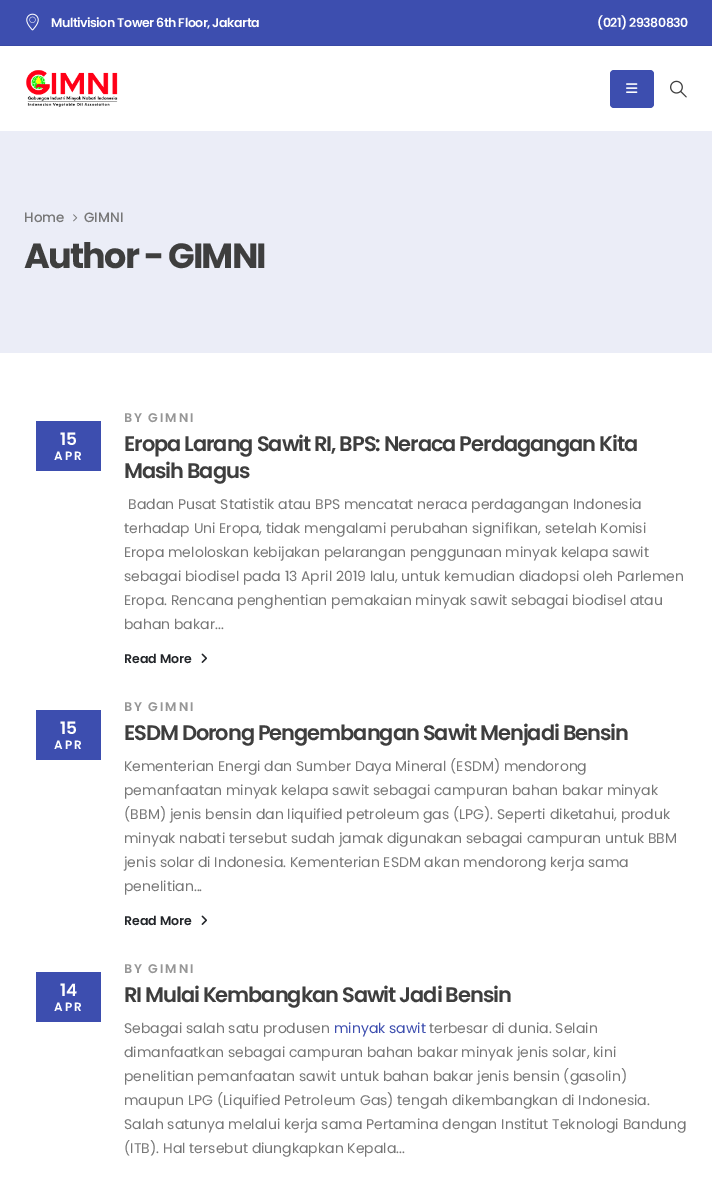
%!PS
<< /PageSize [712 1177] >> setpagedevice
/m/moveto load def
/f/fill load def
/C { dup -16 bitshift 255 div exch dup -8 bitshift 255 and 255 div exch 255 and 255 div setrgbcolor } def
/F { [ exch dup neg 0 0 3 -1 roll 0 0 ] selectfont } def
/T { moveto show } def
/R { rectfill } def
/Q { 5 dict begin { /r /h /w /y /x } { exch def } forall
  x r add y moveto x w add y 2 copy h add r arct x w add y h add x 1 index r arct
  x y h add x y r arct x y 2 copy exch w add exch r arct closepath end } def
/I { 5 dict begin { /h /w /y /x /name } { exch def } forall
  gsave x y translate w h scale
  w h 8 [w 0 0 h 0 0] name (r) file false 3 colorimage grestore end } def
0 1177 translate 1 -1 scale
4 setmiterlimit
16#FFFFFF C
0 0 712 1177 R
16#3D4EAF C
0 0 712 45 R
16#3949A5 C
0 45 712 1 R
(1.rgb) 26 13 13 18 I
/Poppins-SemiBold 12.6 F
16#FFFFFF C
51 27 m -.5 0 (Multivision Tower 6th Floor, Jakarta) ashow
597 27 m -.5 0 (\(021\) 29380830) ashow
(2.rgb) 26 70 92 37 I
16#3D4EAF C
610 70 44 38 4 Q f
(3.rgb) 626 83 12 10 I
(4.rgb) 670 80 17 18 I
16#EBEDF7 C
0 131 712 222 R
/Poppins-Medium 13.5 F
16#777777 C
(Home) 24 222 T
(5.rgb) 73 214 5 8 I
(GIMNI) 84 222 T
/Poppins-Bold 35 F
16#3E3E3E C
24 268 m -1.75 0 (Author - GIMNI) ashow
/Poppins-SemiBold 12.6 F
16#969696 C
124 422 m 2 0 (BY) ashow
148 422 m 2 0 (GIMNI) ashow
16#3D4EAF C
36 421 65 50 R
/Poppins-SemiBold 17 F
16#FFFFFF C
(15) 60 445 T
/Poppins-SemiBold 12 F
54 460 m 2 0 (APR) ashow
/Poppins-SemiBold 21 F
16#3E3E3E C
124 451 m -1.05 0 (Eropa Larang Sawit RI, BPS: Neraca Perdagangan Kita) ashow
124 478 m -1.05 0 (Masih Bagus) ashow
/Poppins-Regular 14 F
16#777777 C
(Badan Pusat Statistik atau BPS mencatat neraca perdagangan Indonesia) 128 509 T
(terhadap Uni Eropa, tidak mengalami perubahan signifikan, setelah Komisi) 124 533 T
(Eropa meloloskan kebijakan pelarangan penggunaan minyak kelapa sawit) 124 557 T
(sebagai biodisel pada 13 April 2019 lalu, untuk kemudian diadopsi oleh Parlemen) 124 581 T
(Eropa. Rencana penghentian pemakaian minyak sawit sebagai biodisel atau) 124 605 T
(bahan bakar...) 124 629 T
/Poppins-SemiBold 12.6 F
16#222529 C
(Read More) 124 663 T
(6.rgb) 201 653 6 10 I
16#969696 C
124 711 m 2 0 (BY) ashow
148 711 m 2 0 (GIMNI) ashow
16#3D4EAF C
36 710 65 50 R
/Poppins-SemiBold 17 F
16#FFFFFF C
(15) 60 734 T
/Poppins-SemiBold 12 F
54 749 m 2 0 (APR) ashow
/Poppins-SemiBold 21 F
16#3E3E3E C
124 740 m -1.05 0 (ESDM Dorong Pengembangan Sawit Menjadi Bensin) ashow
/Poppins-Regular 14 F
16#777777 C
(Kementerian Energi dan Sumber Daya Mineral \(ESDM\) mendorong) 124 771 T
(pemanfaatan minyak kelapa sawit sebagai campuran bahan bakar minyak) 124 795 T
(\(BBM\) jenis bensin dan liquified petroleum gas \(LPG\). Seperti diketahui, produk) 124 819 T
(minyak nabati tersebut sudah jamak digunakan sebagai campuran untuk BBM) 124 843 T
(jenis solar di Indonesia. Kementerian ESDM akan mendorong kerja sama) 124 867 T
(penelitian...) 124 891 T
/Poppins-SemiBold 12.6 F
16#222529 C
(Read More) 124 925 T
(6.rgb) 201 915 6 10 I
16#969696 C
124 973 m 2 0 (BY) ashow
148 973 m 2 0 (GIMNI) ashow
16#3D4EAF C
36 972 65 50 R
/Poppins-SemiBold 17 F
16#FFFFFF C
(14) 60 996 T
/Poppins-SemiBold 12 F
54 1011 m 2 0 (APR) ashow
/Poppins-SemiBold 21 F
16#3E3E3E C
124 1002 m -1.05 0 (RI Mulai Kembangkan Sawit Jadi Bensin) ashow
/Poppins-Regular 14 F
16#777777 C
(Sebagai salah satu produsen) 124 1033 T
16#3D4EAF C
(minyak sawit) 334 1033 T
16#777777 C
(terbesar di dunia. Selain) 429 1033 T
(dimanfaatkan sebagai campuran bahan bakar minyak jenis solar, kini) 124 1057 T
(penelitian pemanfaatan sawit untuk bahan bakar jenis bensin \(gasolin\)) 124 1081 T
(maupun LPG \(Liquified Petroleum Gas\) tengah dikembangkan di Indonesia.) 124 1105 T
(Salah satunya melalui kerja sama Pertamina dengan Institut Teknologi Bandung) 124 1129 T
(\(ITB\). Hal tersebut diungkapkan Kepala...) 124 1153 T
showpage
